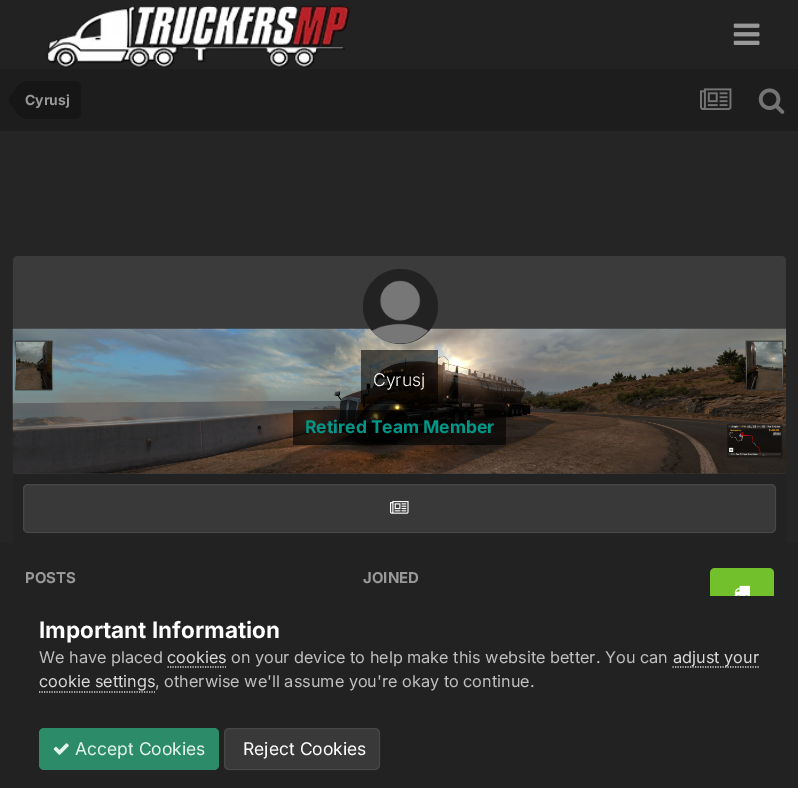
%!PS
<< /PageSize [798 788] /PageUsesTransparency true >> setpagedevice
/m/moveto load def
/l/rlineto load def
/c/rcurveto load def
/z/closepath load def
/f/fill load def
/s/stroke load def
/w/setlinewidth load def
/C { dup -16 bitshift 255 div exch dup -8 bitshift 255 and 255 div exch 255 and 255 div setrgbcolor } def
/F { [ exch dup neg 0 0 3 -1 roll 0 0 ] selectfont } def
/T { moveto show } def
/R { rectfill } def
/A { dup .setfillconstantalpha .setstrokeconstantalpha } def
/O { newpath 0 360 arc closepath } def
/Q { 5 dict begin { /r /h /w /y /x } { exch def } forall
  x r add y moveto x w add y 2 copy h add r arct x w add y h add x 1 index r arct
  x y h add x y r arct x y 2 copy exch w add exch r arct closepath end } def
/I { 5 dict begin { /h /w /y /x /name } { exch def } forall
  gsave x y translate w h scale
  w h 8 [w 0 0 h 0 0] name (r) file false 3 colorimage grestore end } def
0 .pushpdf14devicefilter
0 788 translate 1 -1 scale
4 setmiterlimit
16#252525 C
0 0 798 788 R
16#222222 C
0 0 798 69 R
(1.rgb) 46 5 304 63 I
(2.rgb) 733 23 27 22 I
16#1D1D1D C
0 69 798 62 R
16#161616 C
25 81 m 50 0 l 3.5 0 6 2.5 6 6 c 0 26 l 0 3.5 -2.5 6 -6 6 c -50 0 l z f
25 100 m 0 18.5 l -5.5 0 -8.5 -6.5 -11 -10 c -2 -2.5 -5 -5 -5 -8.5 c z 25 100 m -16 0 l 0 -3.5 3 -6 5 -8.5 c 2.5 -3.5 5.5 -10 11 -10 c z f
/Inter-Bold 14 F
16#999999 C
(Cyrusj) 25 105 T
(3.rgb) 700 88 32 22 I
(4.rgb) 758 88 27 26 I
16#3B3B3B C
18 256 m 763 0 l 3 0 5 2 5 5 c 0 213 l -773 0 l 0 -213 l 0 -3 2 -5 5 -5 c z f
(5.rgb) 12 328 775 146 I
16#222222 C
400.5 306.5 37.5 O f
(6.rgb) 372 280 56 64 I
0.6 A
16#000000 C
361 350 77 54 R
/Inter-Light 17.5 F
1 A
16#FFFFFF C
(Cyrusj) 373 386 T
0.6 A
16#000000 C
293 410 213 35 R
/Inter-Bold 17.5 F
1 A
16#009688 C
(Retired Team Member) 305 433 T
16#222222 C
13 474 773 69 R
16#393939 C
23 484 753 49 5 Q f
0.07 A
16#FFFFFF C
23.5 484.5 752 48 4.5 Q s
1 A
(7.rgb) 390 501 19 13 I
16#222222 C
0 543 798 53 R
/Inter-Bold 15 F
16#999999 C
(POSTS) 25 583 T
(JOINED) 363 583 T
16#72C02C C
710 568 64 47 5 Q f
(8.rgb) 734 585 16 11 I
16#222222 C
0 596 798 192 R
/Inter-Bold 22.5 F
16#FFFFFF C
(Important Information) 39 638 T
/Inter-Regular 16.25 F
16#C0C0C0 C
(We have placed) 39 663 T
16#DADADA C
(cookies) 167 663 T
1.2 w
[1.25 1.25] 0 setdash
167.5 667 m 58.5 0 l s
16#C0C0C0 C
(on your device to help make this website better. You can) 231 663 T
16#DADADA C
672.5 667 m 86.5 0 l s
(adjust your) 673 663 T
(cookie settings) 39 687 T
39 692 m 116 0 l s
16#C0C0C0 C
(, otherwise we'll assume you're okay to continue.) 155 687 T
16#2C8C69 C
39 728 180 42 5 Q f
(9.rgb) 53 743 16 12 I
/Inter-Regular 17.5 F
16#E3F3EC C
(Accept Cookies) 75 755 T
16#393939 C
224 728 156 42 5 Q f
0.07 A
16#FFFFFF C
1 w
[] 0 setdash
224.5 728.5 155 41 4.5 Q s
1 A
(Reject Cookies) 243 755 T
.poppdf14devicefilter showpage
